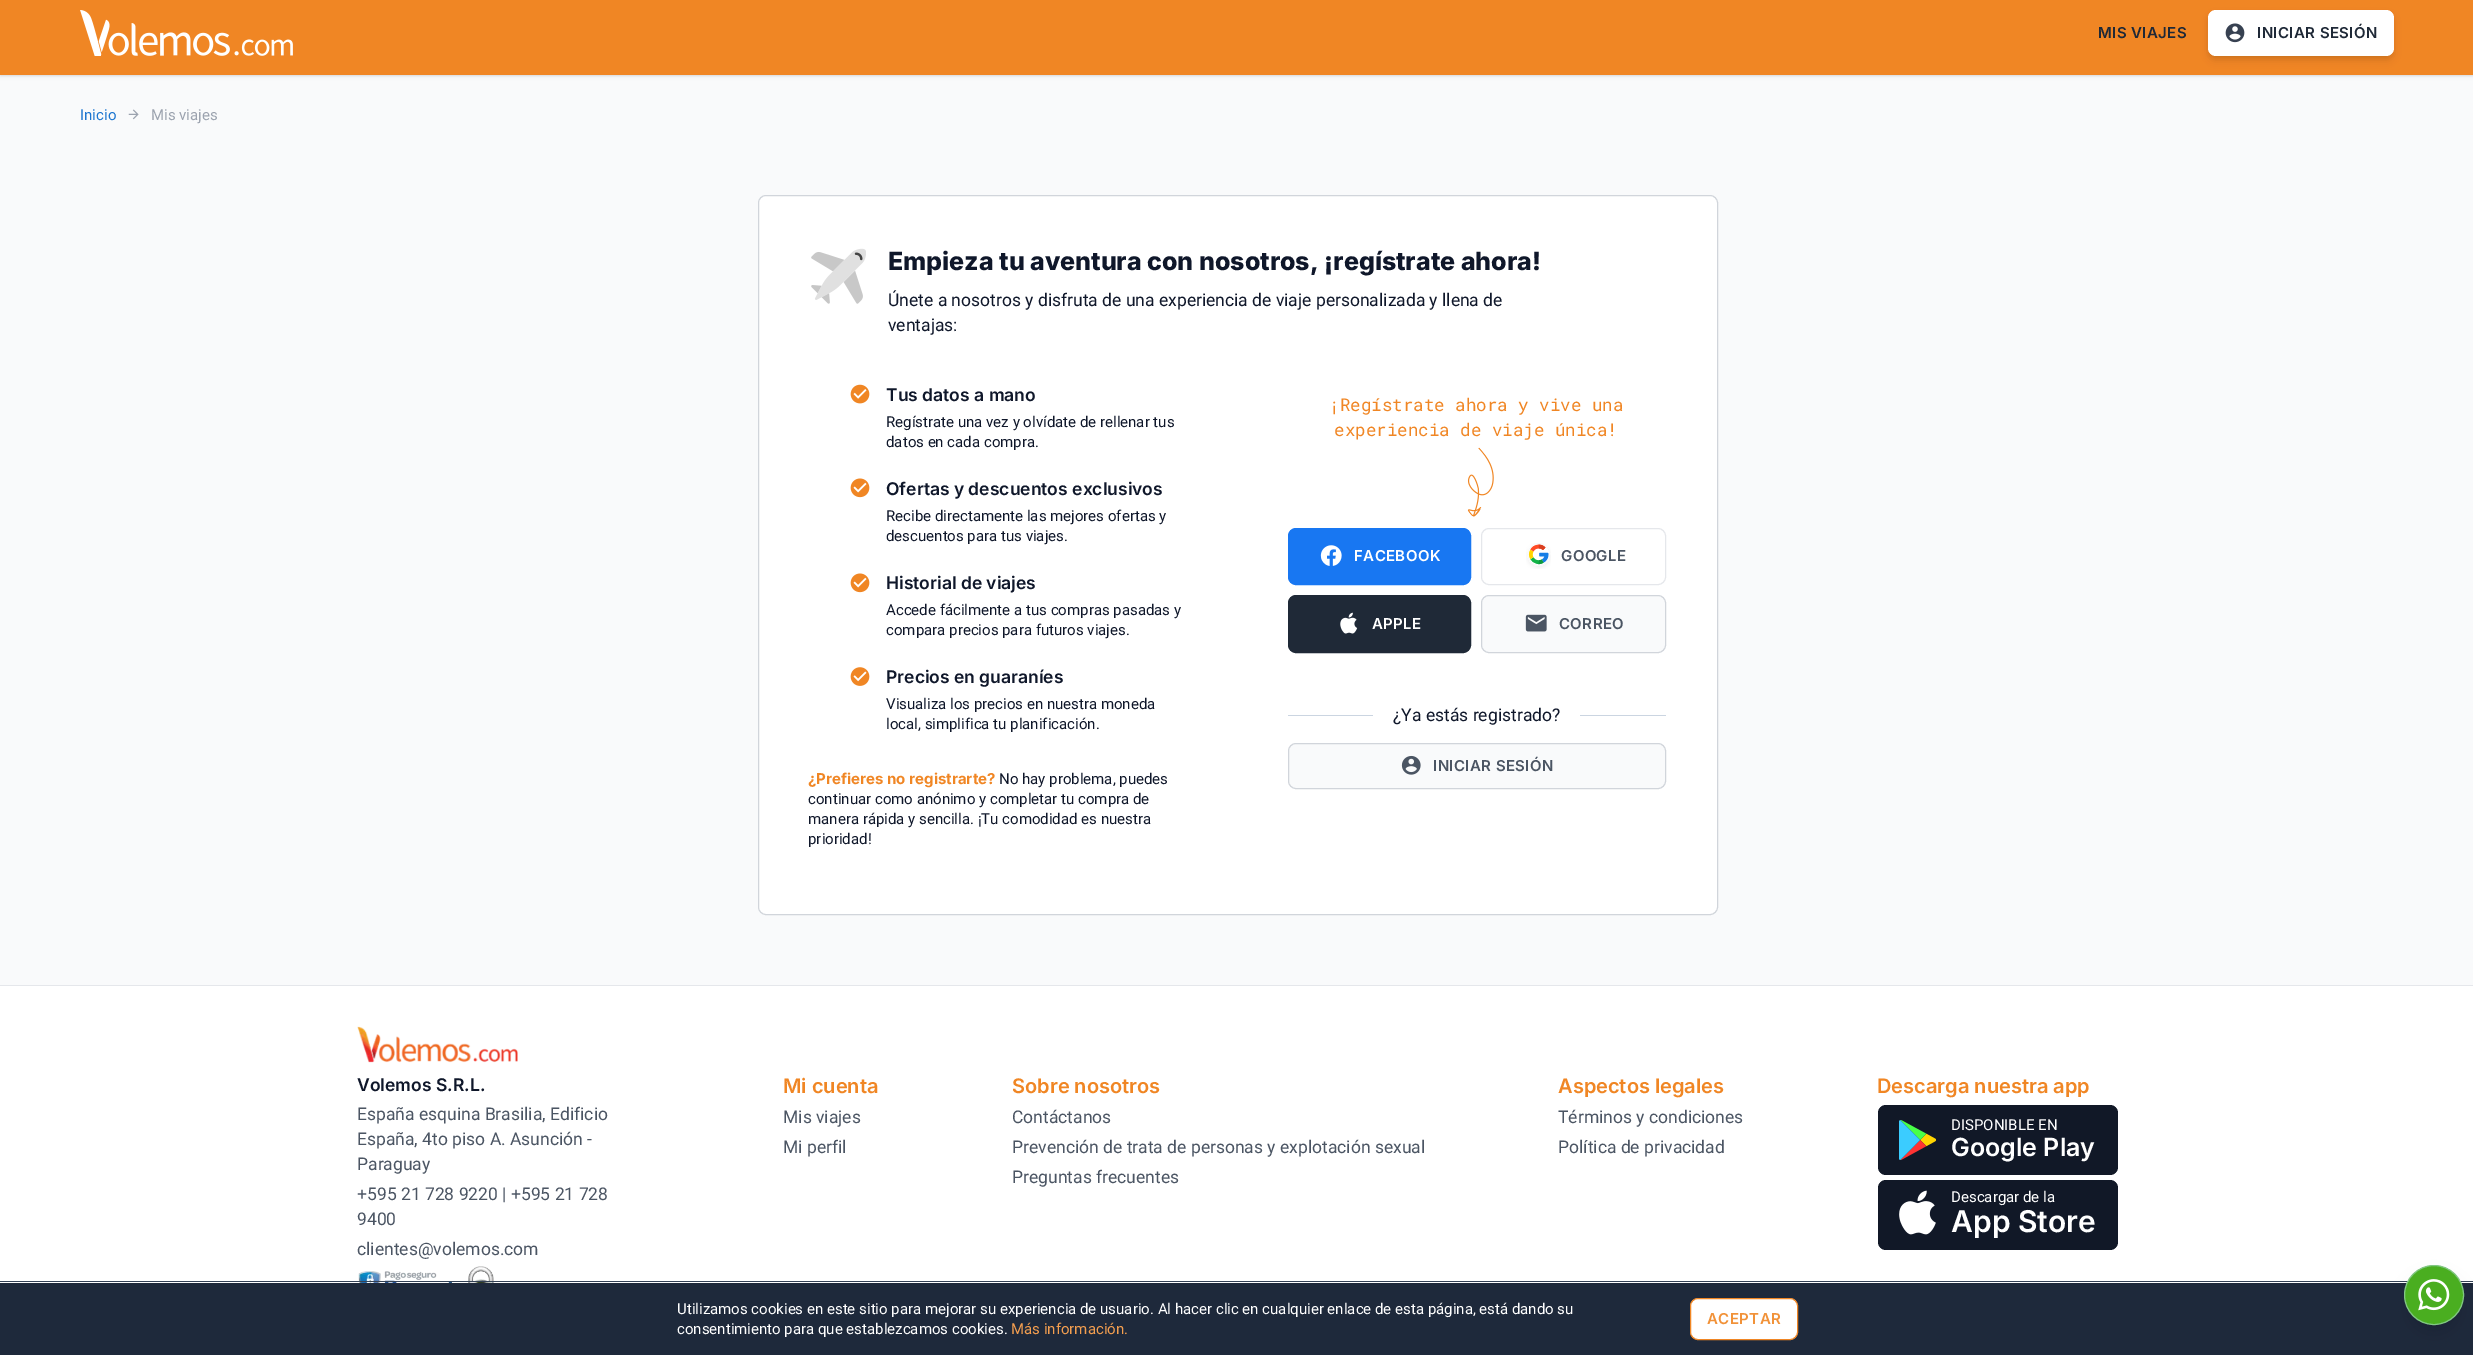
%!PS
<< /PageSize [2473 1355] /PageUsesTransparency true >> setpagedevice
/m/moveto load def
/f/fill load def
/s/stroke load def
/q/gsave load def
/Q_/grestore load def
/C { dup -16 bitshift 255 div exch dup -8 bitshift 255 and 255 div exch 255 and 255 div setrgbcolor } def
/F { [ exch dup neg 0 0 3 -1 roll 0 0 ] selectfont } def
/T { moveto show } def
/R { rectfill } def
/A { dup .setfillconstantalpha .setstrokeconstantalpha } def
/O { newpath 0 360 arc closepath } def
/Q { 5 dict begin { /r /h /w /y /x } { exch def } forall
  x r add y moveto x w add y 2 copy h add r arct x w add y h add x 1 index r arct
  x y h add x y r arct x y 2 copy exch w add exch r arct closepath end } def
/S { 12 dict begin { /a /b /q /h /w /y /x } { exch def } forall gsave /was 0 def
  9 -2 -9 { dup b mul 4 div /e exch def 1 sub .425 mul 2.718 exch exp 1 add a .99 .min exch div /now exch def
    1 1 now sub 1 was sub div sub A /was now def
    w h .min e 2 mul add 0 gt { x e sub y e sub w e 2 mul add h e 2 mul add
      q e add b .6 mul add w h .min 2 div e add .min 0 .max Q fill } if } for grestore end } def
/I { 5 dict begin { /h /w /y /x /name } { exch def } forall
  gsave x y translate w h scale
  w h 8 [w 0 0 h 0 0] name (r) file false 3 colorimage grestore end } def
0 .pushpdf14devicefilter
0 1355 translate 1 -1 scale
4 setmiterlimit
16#F9FAFB C
0 0 2473 1355 R
16#000000 C
1 3 2472 72 0 1 .1 S
0 1 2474 75 0 2 .1 S
16#F08624 C
0 0 2473 75 R
(1.rgb) 80 10 213 46 I
/Inter-SemiBold 15 F
16#1F2937 C
2098 38 m .4 0 (MIS VIAJES) ashow
16#000000 C
2210 15 181 41 5 2.5 .1 S
2209 16 184 44 6 4 .1 S
16#FFFFFF C
2208 10 186 46 8 Q f
(2.rgb) 2225 23 20 20 I
16#1F2937 C
2257 38 m .4 0 (INICIAR SESIÓN) ashow
/Roboto-Regular 15 F
16#1D76D0 C
(Inicio) 80 120 T
(3.rgb) 128 109 11 11 I
16#9CA3AF C
(Mis viajes) 151 120 T
16#FFFFFF C
758.5 195.5 959 719 7.5 Q q f Q_
16#D1D5DB C
s
(4.rgb) 811 248 55 56 I
/Inter-ExtraBold 25 F
16#0F172A C
(Empieza tu aventura con nosotros, ¡regístrate ahora!) 888 270 T
/Roboto-Regular 17.5 F
(Únete a nosotros y disfruta de una experiencia de viaje personalizada y llena de) 888 306 T
(ventajas:) 888 331 T
(5.rgb) 850 384 20 20 I
/Inter-SemiBold 17.5 F
(Tus datos a mano) 886 401 T
/Roboto-Regular 15 F
(Regístrate una vez y olvídate de rellenar tus) 886 427 T
(datos en cada compra.) 886 447 T
(6.rgb) 850 478 20 20 I
/Inter-SemiBold 17.5 F
(Ofertas y descuentos exclusivos) 886 495 T
/Roboto-Regular 15 F
(Recibe directamente las mejores ofertas y) 886 521 T
(descuentos para tus viajes.) 886 541 T
(6.rgb) 850 573 20 20 I
/Inter-SemiBold 17.5 F
(Historial de viajes) 886 589 T
/Roboto-Regular 15 F
(Accede fácilmente a tus compras pasadas y) 886 615 T
(compara precios para futuros viajes.) 886 635 T
(7.rgb) 850 667 20 19 I
/Inter-SemiBold 17.5 F
(Precios en guaraníes) 886 683 T
/Roboto-Regular 15 F
(Visualiza los precios en nuestra moneda) 886 709 T
(local, simplifica tu planificación.) 886 729 T
/Inter-Bold 15 F
16#F08624 C
(¿Prefieres no registrarte?) 808 784 T
/Roboto-Regular 15 F
16#0F172A C
(No hay problema, puedes) 999 784 T
(continuar como anónimo y completar tu compra de) 808 804 T
(manera rápida y sencilla. ¡Tu comodidad es nuestra) 808 824 T
(prioridad!) 808 844 T
/RobotoMono-Regular 17.5 F
16#F08624 C
(¡Regístrate ahora y vive una) 1329 411 T
(experiencia de viaje única!) 1334 436 T
(8.rgb) 1467 447 27 70 I
16#1877F2 C
1288.5 528.5 182 56 7.5 Q q f Q_
s
(9.rgb) 1320 545 22 21 I
/Inter-SemiBold 15 F
16#FFFFFF C
1354 561 m .4 0 (FACEBOOK) ashow
16#E5E7EB C
1481.5 528.5 184 56 7.5 Q s
(10.rgb) 1526 543 25 26 I
16#4B5563 C
1561 561 m .4 0 (GOOGLE) ashow
16#1F2937 C
1288.5 595.5 182 57 7.5 Q q f Q_
s
(11.rgb) 1340 612 18 22 I
16#FFFFFF C
1372 629 m .4 0 (APPLE) ashow
16#F9FAFB C
1481.5 595.5 184 57 7.5 Q q f Q_
16#D1D5DB C
s
(12.rgb) 1525 614 22 18 I
16#4B5563 C
1559 629 m .4 0 (CORREO) ashow
16#CBD5E1 C
1288 715 85 1 R
/Roboto-Regular 17.5 F
16#0F172A C
(¿Ya estás registrado?) 1393 721 T
16#CBD5E1 C
1580 715 86 1 R
16#F9FAFB C
1288.5 743.5 377 45 7.5 Q q f Q_
16#D1D5DB C
s
(13.rgb) 1401 755 20 20 I
/Inter-SemiBold 15 F
16#4B5563 C
1433 771 m .4 0 (INICIAR SESIÓN) ashow
16#FFFFFF C
0 986 2473 297 R
16#E5E7EB C
0 985 2473 1 R
(14.rgb) 357 1026 161 37 I
/Inter-SemiBold 17.5 F
16#0F172A C
(Volemos S.R.L.) 357 1091 T
/Roboto-Regular 17.5 F
16#4B5563 C
(España esquina Brasilia, Edificio) 357 1120 T
(España, 4to piso A. Asunción -) 357 1145 T
(Paraguay) 357 1170 T
(+595 21 728 9220 | +595 21 728) 357 1200 T
(9400) 357 1225 T
(clientes@volemos.com) 357 1255 T
(15.rgb) 358 1266 136 17 I
/Inter-SemiBold 20 F
16#F08624 C
(Mi cuenta) 783 1093 T
/Roboto-Regular 17.5 F
16#4B5563 C
(Mis viajes) 783 1123 T
(Mi perfil) 783 1153 T
/Inter-SemiBold 20 F
16#F08624 C
(Sobre nosotros) 1012 1093 T
/Roboto-Regular 17.5 F
16#4B5563 C
(Contáctanos) 1012 1123 T
(Prevención de trata de personas y explotación sexual) 1012 1153 T
(Preguntas frecuentes) 1012 1183 T
/Inter-SemiBold 20 F
16#F08624 C
(Aspectos legales) 1558 1093 T
/Roboto-Regular 17.5 F
16#4B5563 C
(Términos y condiciones) 1558 1123 T
(Política de privacidad) 1558 1153 T
/Inter-SemiBold 20 F
16#F08624 C
(Descarga nuestra app) 1877 1093 T
16#111827 C
1878 1105 240 70 8 Q f
(16.rgb) 1899 1120 37 40 I
/Roboto-Regular 15 F
16#FFFFFF C
(DISPONIBLE EN) 1951 1130 T
/Inter-SemiBold 25 F
(Google Play) 1951 1156 T
16#111827 C
1878 1180 240 70 8 Q f
(17.rgb) 1899 1190 37 45 I
/Roboto-Regular 15 F
16#FFFFFF C
(Descargar de la) 1951 1202 T
/Inter-SemiBold 30 F
(App Store) 1951 1232 T
16#1E293B C
0 1283 2473 72 R
16#334155 C
0 1281 2473 1 R
/Roboto-Regular 15 F
16#FFFFFF C
(Utilizamos cookies en este sitio para mejorar su experiencia de usuario. Al hacer clic en cualquier enlace de esta página, está dando su) 677 1314 T
(consentimiento para que establezcamos cookies.) 677 1334 T
16#F39E4F C
(Más información.) 1011 1334 T
16#FFFFFF C
1690.5 1298.5 107 41 7.5 Q q f Q_
16#F08624 C
s
/Inter-SemiBold 15 F
16#F19239 C
1707 1324 m .4 0 (ACEPTAR) ashow
16#000000 C
2409 1275 50 50 25 4 .1 S
2408 1281 52 53 26 9.5 .1 S
16#4AAE20 C
2434 1295 29.5 O q f Q_
16#81C784 C
s
(18.rgb) 2418 1279 32 32 I
.poppdf14devicefilter showpage
